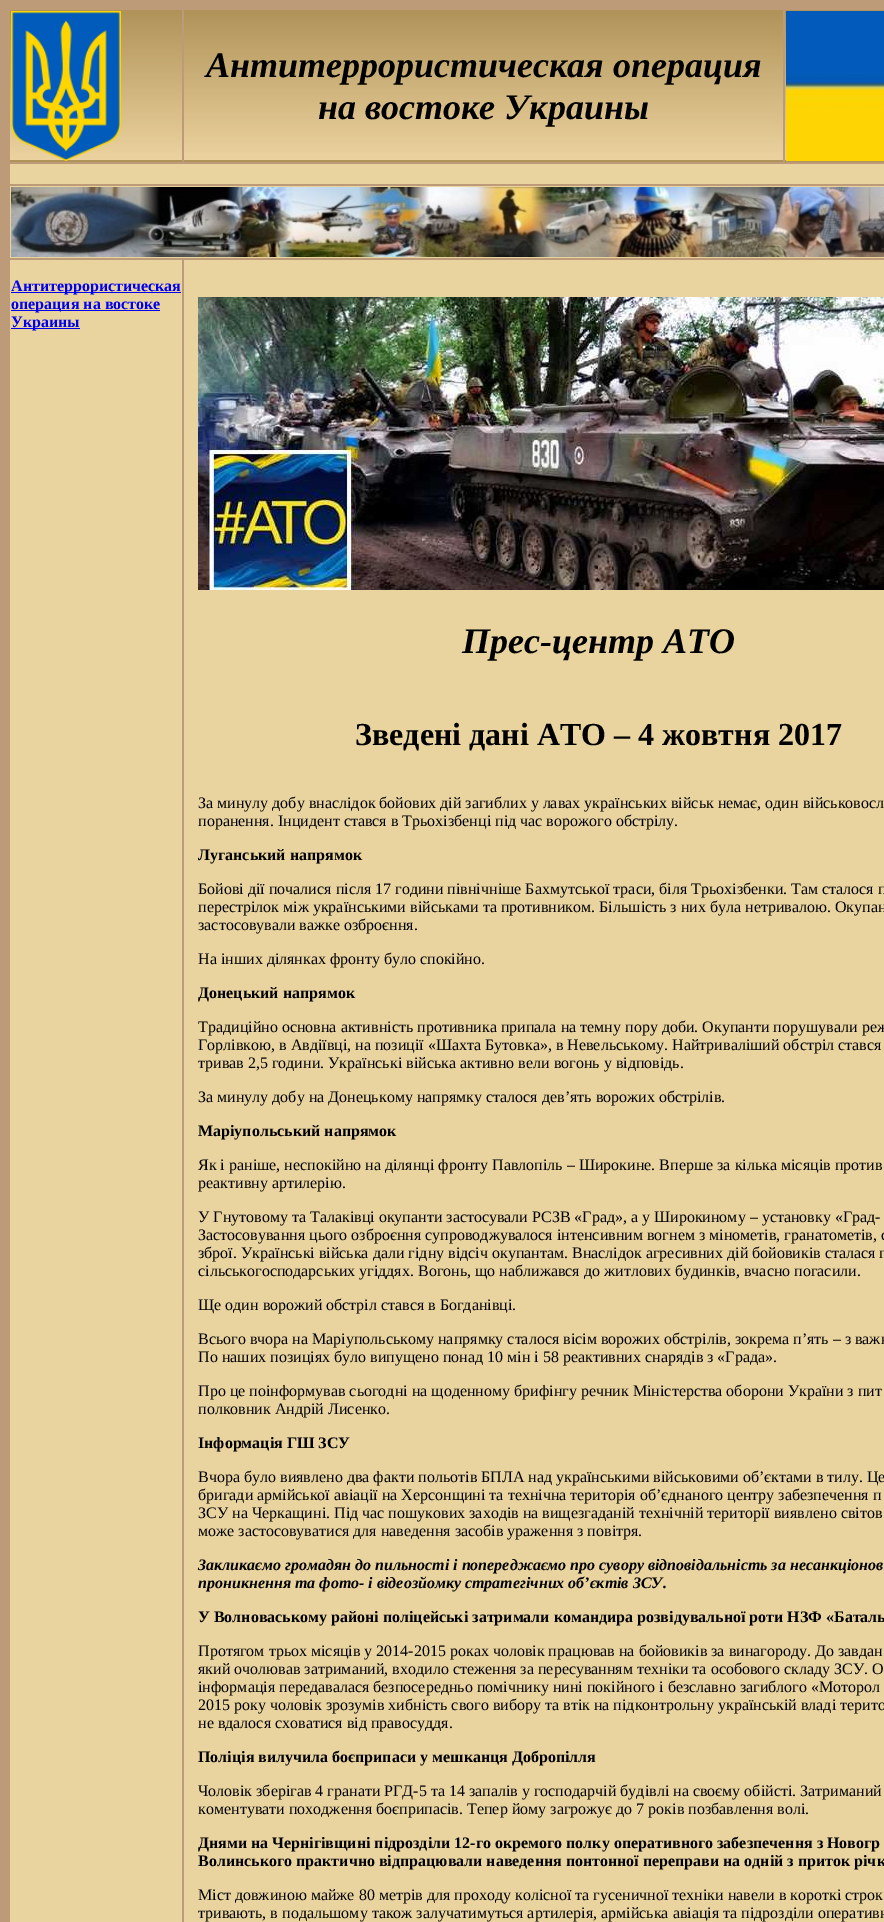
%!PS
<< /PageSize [884 1922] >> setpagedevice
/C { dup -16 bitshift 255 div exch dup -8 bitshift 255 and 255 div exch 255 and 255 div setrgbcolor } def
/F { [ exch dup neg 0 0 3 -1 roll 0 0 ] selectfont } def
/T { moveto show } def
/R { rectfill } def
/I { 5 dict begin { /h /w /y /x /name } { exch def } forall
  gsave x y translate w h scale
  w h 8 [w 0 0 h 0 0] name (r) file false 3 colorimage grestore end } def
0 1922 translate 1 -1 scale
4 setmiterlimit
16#BD9B78 C
0 0 884 1922 R
(1.rgb) 10 10 172 152 I
(2.rgb) 11 11 110 150 I
(3.rgb) 184 10 599 152 I
/LiberationSerif-BoldItalic 36 F
16#000000 C
(Антитеррористическая операция) 206 77 T
(на востоке Украины) 318 119 T
(4.rgb) 785 10 99 152 I
(5.rgb) 786 11 98 150 I
16#E9D49F C
10 164 874 20 R
10 186 874 72 R
(6.rgb) 11 187 873 70 I
10 260 172 1662 R
16#0000EE C
11 292 170 1 R
/LiberationSerif-Bold 16 F
(Антитеррористическая) 11 291 T
11 310 149 1 R
(операция на востоке) 11 309 T
11 328 69 1 R
(Украины) 11 327 T
16#E9D49F C
184 260 700 1662 R
(7.rgb) 198 297 686 293 I
/LiberationSerif-BoldItalic 36 F
16#000000 C
(Прес-центр АТО) 462 653 T
/LiberationSerif-Bold 32 F
(Зведені дані АТО – 4 жовтня 2017) 355 745 T
/LiberationSerif-Regular 16 F
(За минулу добу внаслідок бойових дій загиблих у лавах українських військ немає, один військовосл) 198 808 T
(поранення. Інцидент стався в Трьохізбенці під час ворожого обстрілу.) 198 826 T
/LiberationSerif-Bold 16 F
(Луганський напрямок) 198 860 T
/LiberationSerif-Regular 16 F
(Бойові дії почалися після 17 години північніше Бахмутської траси, біля Трьохізбенки. Там сталося п) 198 894 T
(перестрілок між українськими військами та противником. Більшість з них була нетривалою. Окупан) 198 912 T
(застосовували важке озброєння.) 198 930 T
(На інших ділянках фронту було спокійно.) 198 964 T
/LiberationSerif-Bold 16 F
(Донецький напрямок) 198 998 T
/LiberationSerif-Regular 16 F
(Традиційно основна активність противника припала на темну пору доби. Окупанти порушували реж) 198 1032 T
(Горлівкою, в Авдіївці, на позиції «Шахта Бутовка», в Невельському. Найтриваліший обстріл стався) 198 1050 T
(тривав 2,5 години. Українські війська активно вели вогонь у відповідь.) 198 1068 T
(За минулу добу на Донецькому напрямку сталося дев’ять ворожих обстрілів.) 198 1102 T
/LiberationSerif-Bold 16 F
(Маріупольський напрямок) 198 1136 T
/LiberationSerif-Regular 16 F
(Як і раніше, неспокійно на ділянці фронту Павлопіль – Широкине. Вперше за кілька місяців против) 198 1170 T
(реактивну артилерію.) 198 1188 T
(У Гнутовому та Талаківці окупанти застосували РСЗВ «Град», а у Широкиному – установку «Град-) 198 1222 T
(Застосовування цього озброєння супроводжувалося інтенсивним вогнем з мінометів, гранатометів, с) 198 1240 T
(зброї. Українські війська дали гідну відсіч окупантам. Внаслідок агресивних дій бойовиків сталася п) 198 1258 T
(сільськогосподарських угіддях. Вогонь, що наближався до житлових будинків, вчасно погасили.) 198 1276 T
(Ще один ворожий обстріл стався в Богданівці.) 198 1310 T
(Всього вчора на Маріупольському напрямку сталося вісім ворожих обстрілів, зокрема п’ять – з важк) 198 1344 T
(По наших позиціях було випущено понад 10 мін і 58 реактивних снарядів з «Града».) 198 1362 T
(Про це поінформував сьогодні на щоденному брифінгу речник Міністерства оборони України з пит) 198 1396 T
(полковник Андрій Лисенко.) 198 1414 T
/LiberationSerif-Bold 16 F
(Інформація ГШ ЗСУ) 198 1448 T
/LiberationSerif-Regular 16 F
(Вчора було виявлено два факти польотів БПЛА над українськими військовими об’єктами в тилу. Це) 198 1482 T
(бригади армійської авіації на Херсонщині та технічна територія об’єднаного центру забезпечення п) 198 1500 T
(ЗСУ на Черкащині. Під час пошукових заходів на вищезгаданій технічній території виявлено світов) 198 1518 T
(може застосовуватися для наведення засобів ураження з повітря.) 198 1536 T
/LiberationSerif-BoldItalic 16 F
(Закликаємо громадян до пильності і попереджаємо про сувору відповідальність за несанкціонов) 198 1570 T
(проникнення та фото- і відеозйомку стратегічних об’єктів ЗСУ.) 198 1588 T
/LiberationSerif-Bold 16 F
(У Волноваському районі поліцейські затримали командира розвідувальної роти НЗФ «Баталь) 198 1622 T
/LiberationSerif-Regular 16 F
(Протягом трьох місяців у 2014-2015 роках чоловік працював на бойовиків за винагороду. До завдан) 198 1656 T
(який очолював затриманий, входило стеження за пересуванням техніки та особового складу ЗСУ. О) 198 1674 T
(інформація передавалася безпосередньо помічнику нині покійного і безславно загиблого «Моторол) 198 1692 T
(2015 року чоловік зрозумів хибність свого вибору та втік на підконтрольну українській владі терито) 198 1710 T
(не вдалося сховатися від правосуддя.) 198 1728 T
/LiberationSerif-Bold 16 F
(Поліція вилучила боєприпаси у мешканця Добропілля) 198 1762 T
/LiberationSerif-Regular 16 F
(Чоловік зберігав 4 гранати РГД-5 та 14 запалів у господарчій будівлі на своєму обійсті. Затриманий) 198 1796 T
(коментувати походження боєприпасів. Тепер йому загрожує до 7 років позбавлення волі.) 198 1814 T
/LiberationSerif-Bold 16 F
(Днями на Чернігівщині підрозділи 12-го окремого полку оперативного забезпечення з Новогр) 198 1848 T
(Волинського практично відпрацювали наведення понтонної переправи на одній з приток річк) 198 1866 T
/LiberationSerif-Regular 16 F
(Міст довжиною майже 80 метрів для проходу колісної та гусеничної техніки навели в короткі строк) 198 1900 T
(тривають, в подальшому також залучатимуться артилерія, армійська авіація та підрозділи оперативн) 198 1918 T
showpage
